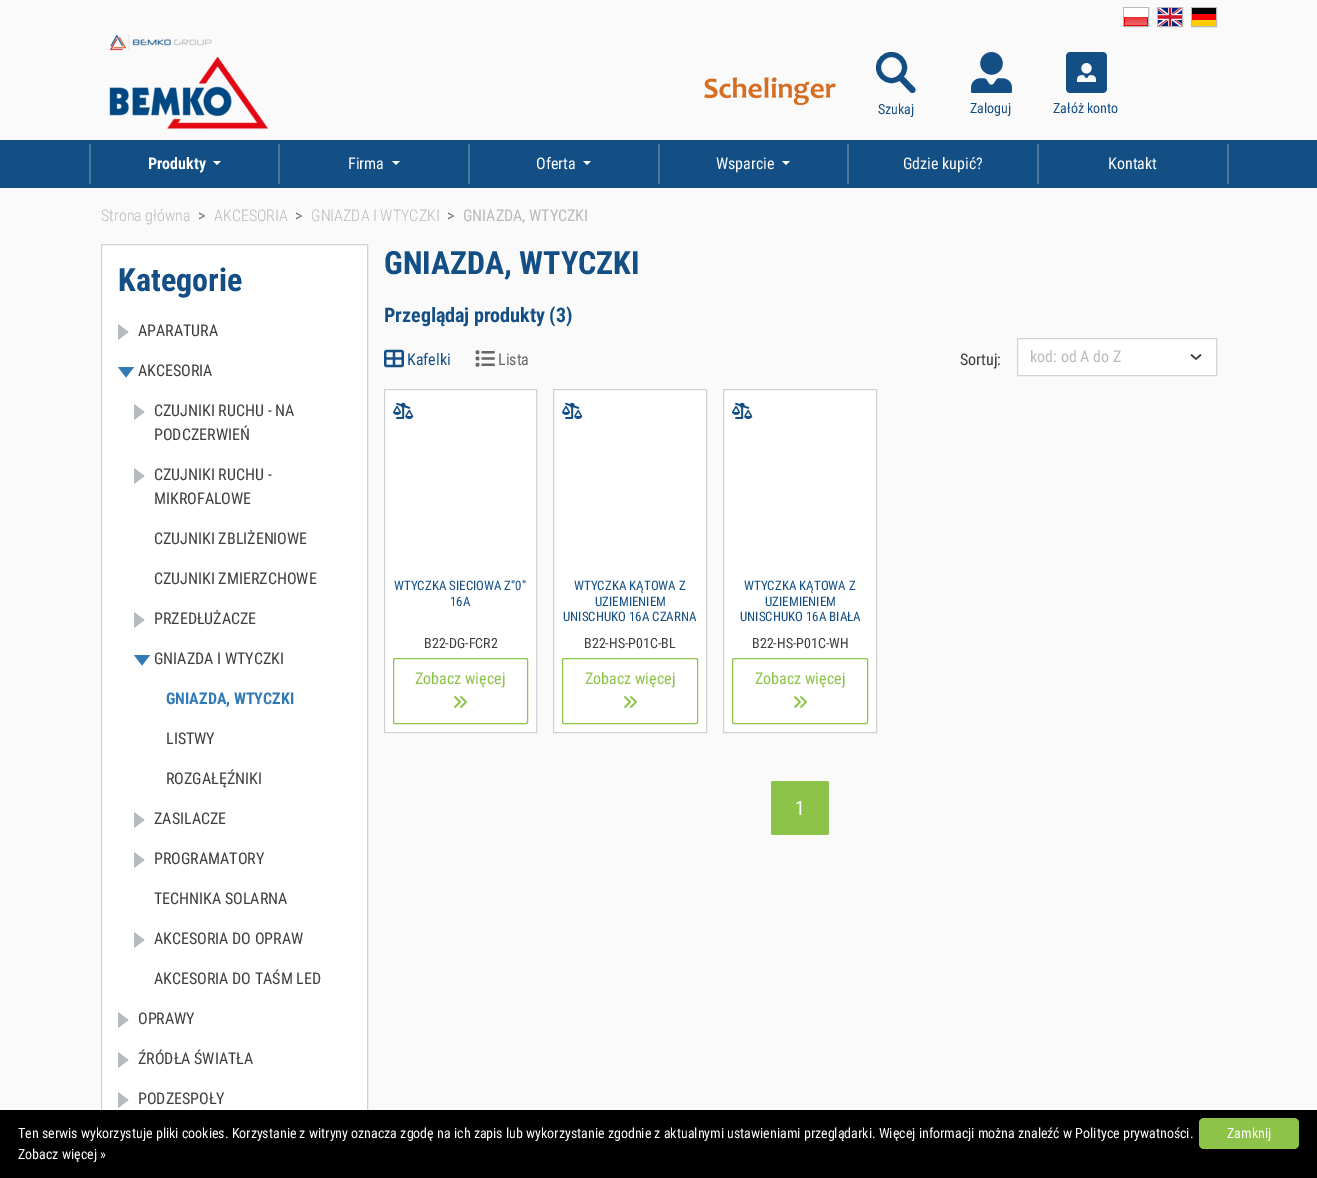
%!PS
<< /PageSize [1317 1178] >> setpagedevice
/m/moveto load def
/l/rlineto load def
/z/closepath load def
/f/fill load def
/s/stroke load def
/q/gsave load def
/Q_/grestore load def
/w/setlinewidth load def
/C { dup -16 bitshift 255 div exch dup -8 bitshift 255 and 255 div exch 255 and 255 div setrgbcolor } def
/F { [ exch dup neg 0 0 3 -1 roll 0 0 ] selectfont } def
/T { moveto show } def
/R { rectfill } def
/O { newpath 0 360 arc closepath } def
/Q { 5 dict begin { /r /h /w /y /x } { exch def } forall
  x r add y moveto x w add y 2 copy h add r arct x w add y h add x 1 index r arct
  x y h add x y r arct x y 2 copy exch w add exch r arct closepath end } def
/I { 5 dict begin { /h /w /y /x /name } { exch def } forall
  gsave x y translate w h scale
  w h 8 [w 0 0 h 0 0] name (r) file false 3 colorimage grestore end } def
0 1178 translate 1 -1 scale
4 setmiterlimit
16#FAFAFA C
0 0 1317 1178 R
16#B7BBBE C
1123.5 7.5 25 19 rectstroke
(1.rgb) 1124 8 24 18 I
1157.5 7.5 25 19 rectstroke
(2.rgb) 1158 8 24 18 I
1191.5 7.5 25 19 rectstroke
(3.rgb) 1192 8 24 18 I
(4.rgb) 109 34 159 95 I
(5.rgb) 704 77 132 28 I
16#134F84 C
5 w
891.5 67.5 13 O s
6 w
1 setlinecap
901 78 m 11.5 12 l s
/RobotoCondensed-Regular 14 F
(Szukaj) 878 114 T
(6.rgb) 971 52 41 41 I
(Zaloguj) 970 113 T
(7.rgb) 1066 52 41 41 I
(Załóż konto) 1053 113 T
0 140 1317 48 R
16#4D789D C
89 144 2 40 R
/RobotoCondensed-Bold 16 F
16#FFFFFF C
(Produkty) 148 169 T
213 161 m 8 0 l -4 4 l z f
16#4D789D C
278 144 2 40 R
/RobotoCondensed-Regular 16 F
16#FFFFFF C
(Firma) 348 169 T
392 161 m 8 0 l -4 4 l z f
16#4D789D C
468 144 2 40 R
16#FFFFFF C
(Oferta) 536 169 T
583 161 m 8 0 l -4 4 l z f
16#4D789D C
658 144 2 40 R
16#FFFFFF C
(Wsparcie) 716 169 T
782 161 m 8 0 l -4 4 l z f
16#4D789D C
847 144 2 40 R
16#FFFFFF C
(Gdzie kupić?) 903 169 T
16#4D789D C
1227 144 2 40 R
1037 144 2 40 R
16#FFFFFF C
(Kontakt) 1108 169 T
/RobotoCondensed-Light 16 F
16#B7BBBE C
(Strona główna) 101 221 T
/RobotoCondensed-Regular 16 F
16#6C757D C
(>) 198 221 T
/RobotoCondensed-Light 16 F
16#B7BBBE C
(AKCESORIA) 214 221 T
/RobotoCondensed-Regular 16 F
16#6C757D C
(>) 295 221 T
/RobotoCondensed-Light 16 F
16#B7BBBE C
(GNIAZDA I WTYCZKI) 311 221 T
/RobotoCondensed-Regular 16 F
16#6C757D C
(>) 447 221 T
16#B7BBBE C
(GNIAZDA, WTYCZKI) 463 221 T
16#FFFFFF C
102 245 265 865 R
16#D2D2D2 C
1 w
0 setlinecap
101.5 244.5 266 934 rectstroke
/RobotoCondensed-Bold 32 F
16#134F84 C
(Kategorie) 118 291 T
16#B7BBBE C
128.5 332 m -10.5 -8 l 0 16 l z f
/RobotoCondensed-Regular 16 F
16#3E3E3E C
(APARATURA) 138 336 T
16#337AB7 C
126 377.5 m 8 -10.5 l -16 0 l z f
16#3E3E3E C
(AKCESORIA) 138 376 T
16#B7BBBE C
144.5 412 m -10.5 -8 l 0 16 l z f
16#3E3E3E C
(CZUJNIKI RUCHU - NA) 154 416 T
(PODCZERWIEŃ) 154 440 T
16#B7BBBE C
144.5 476 m -10.5 -8 l 0 16 l z f
16#3E3E3E C
(CZUJNIKI RUCHU -) 154 480 T
(MIKROFALOWE) 154 504 T
(CZUJNIKI ZBLIŻENIOWE) 154 544 T
(CZUJNIKI ZMIERZCHOWE) 154 584 T
16#B7BBBE C
144.5 620 m -10.5 -8 l 0 16 l z f
16#3E3E3E C
(PRZEDŁUŻACZE) 154 624 T
16#337AB7 C
142 665.5 m 8 -10.5 l -16 0 l z f
16#3E3E3E C
(GNIAZDA I WTYCZKI) 154 664 T
/RobotoCondensed-Bold 16 F
16#337AB7 C
(GNIAZDA, WTYCZKI) 166 704 T
/RobotoCondensed-Regular 16 F
16#3E3E3E C
(LISTWY) 166 744 T
(ROZGAŁĘŹNIKI) 166 784 T
16#B7BBBE C
144.5 820 m -10.5 -8 l 0 16 l z 144.5 860 m -10.5 -8 l 0 16 l z f
16#3E3E3E C
(ZASILACZE) 154 824 T
(PROGRAMATORY) 154 864 T
(TECHNIKA SOLARNA) 154 904 T
16#B7BBBE C
144.5 940 m -10.5 -8 l 0 16 l z f
16#3E3E3E C
(AKCESORIA DO OPRAW) 154 944 T
(AKCESORIA DO TAŚM LED) 154 984 T
16#B7BBBE C
128.5 1020 m -10.5 -8 l 0 16 l z 128.5 1060 m -10.5 -8 l 0 16 l z f
16#3E3E3E C
(OPRAWY) 138 1024 T
(ŹRÓDŁA ŚWIATŁA) 138 1064 T
16#B7BBBE C
128.5 1100 m -10.5 -8 l 0 16 l z f
16#3E3E3E C
(PODZESPOŁY) 138 1104 T
/RobotoCondensed-Bold 32 F
16#134F84 C
(GNIAZDA, WTYCZKI) 384 274 T
/RobotoCondensed-Bold 20 F
(Przeglądaj produkty \(3\)) 384 322 T
(8.rgb) 384 349 20 19 I
/RobotoCondensed-Regular 16 F
(Kafelki) 407 365 T
(9.rgb) 475 350 20 17 I
16#666666 C
(Lista) 498 365 T
16#3E3E3E C
(Sortuj:) 960 365 T
16#FFFFFF C
1018 339 198 36 R
16#343A40 C
1.5 w
1 setlinecap
1 setlinejoin
1191.5 355 m 4.5 4 l 4.5 -4 l s
16#CED4DA C
1 w
0 setlinecap
0 setlinejoin
1017.5 338.5 199 37 rectstroke
16#B7BBBE C
(kod: od A do Z) 1030 362 T
16#FFFFFF C
384.5 389.5 m 152 0 l 0 343 l -152 0 l z q f Q_
16#D2D2D2 C
s
(10.rgb) 393 402 21 17 I
/RobotoCondensed-Regular 13 F
16#134F84 C
(WTYCZKA SIECIOWA Z"0") 394 590 T
(16A) 450 606 T
/RobotoCondensed-Regular 14 F
16#3E3E3E C
(B22-DG-FCR2) 424 648 T
16#8DC349 C
393.5 658.5 134 65 1.5 Q s
/RobotoCondensed-Regular 16 F
(Zobacz więcej) 415 684 T
(11.rgb) 454 696 13 12 I
16#FFFFFF C
553.5 389.5 m 153 0 l 0 343 l -153 0 l z q f Q_
16#D2D2D2 C
s
(10.rgb) 562 402 21 17 I
/RobotoCondensed-Regular 13 F
16#134F84 C
(WTYCZKA KĄTOWA Z) 574 590 T
(UZIEMIENIEM) 595 606 T
(UNISCHUKO 16A CZARNA) 563 621 T
/RobotoCondensed-Regular 14 F
16#3E3E3E C
(B22-HS-P01C-BL) 584 648 T
16#8DC349 C
562.5 658.5 135 65 1.5 Q s
/RobotoCondensed-Regular 16 F
(Zobacz więcej) 585 684 T
(11.rgb) 624 696 13 12 I
16#FFFFFF C
723.5 389.5 m 153 0 l 0 343 l -153 0 l z q f Q_
16#D2D2D2 C
s
(10.rgb) 732 402 21 17 I
/RobotoCondensed-Regular 13 F
16#134F84 C
(WTYCZKA KĄTOWA Z) 744 590 T
(UZIEMIENIEM) 765 606 T
(UNISCHUKO 16A BIAŁA) 740 621 T
/RobotoCondensed-Regular 14 F
16#3E3E3E C
(B22-HS-P01C-WH) 752 648 T
16#8DC349 C
732.5 658.5 135 65 1.5 Q s
/RobotoCondensed-Regular 16 F
(Zobacz więcej) 755 684 T
(11.rgb) 794 696 13 12 I
771 781 58 54 2 Q f
/RobotoCondensed-Regular 20 F
16#FFFFFF C
(1) 795 815 T
16#000000 C
0 1110 1317 68 R
/RobotoCondensed-Regular 14 F
16#FFFFFF C
(Ten serwis wykorzystuje pliki cookies. Korzystanie z witryny oznacza zgodę na ich zapis lub wykorzystanie zgodnie z aktualnymi ustawieniami przeglądarki. Więcej informacji można znaleźć w Polityce prywatności.) 18 1138 T
(Zobacz więcej ») 18 1159 T
16#8DC349 C
1199 1118 100 31 5 Q f
16#FFFFFF C
(Zamknij) 1227 1138 T
showpage
